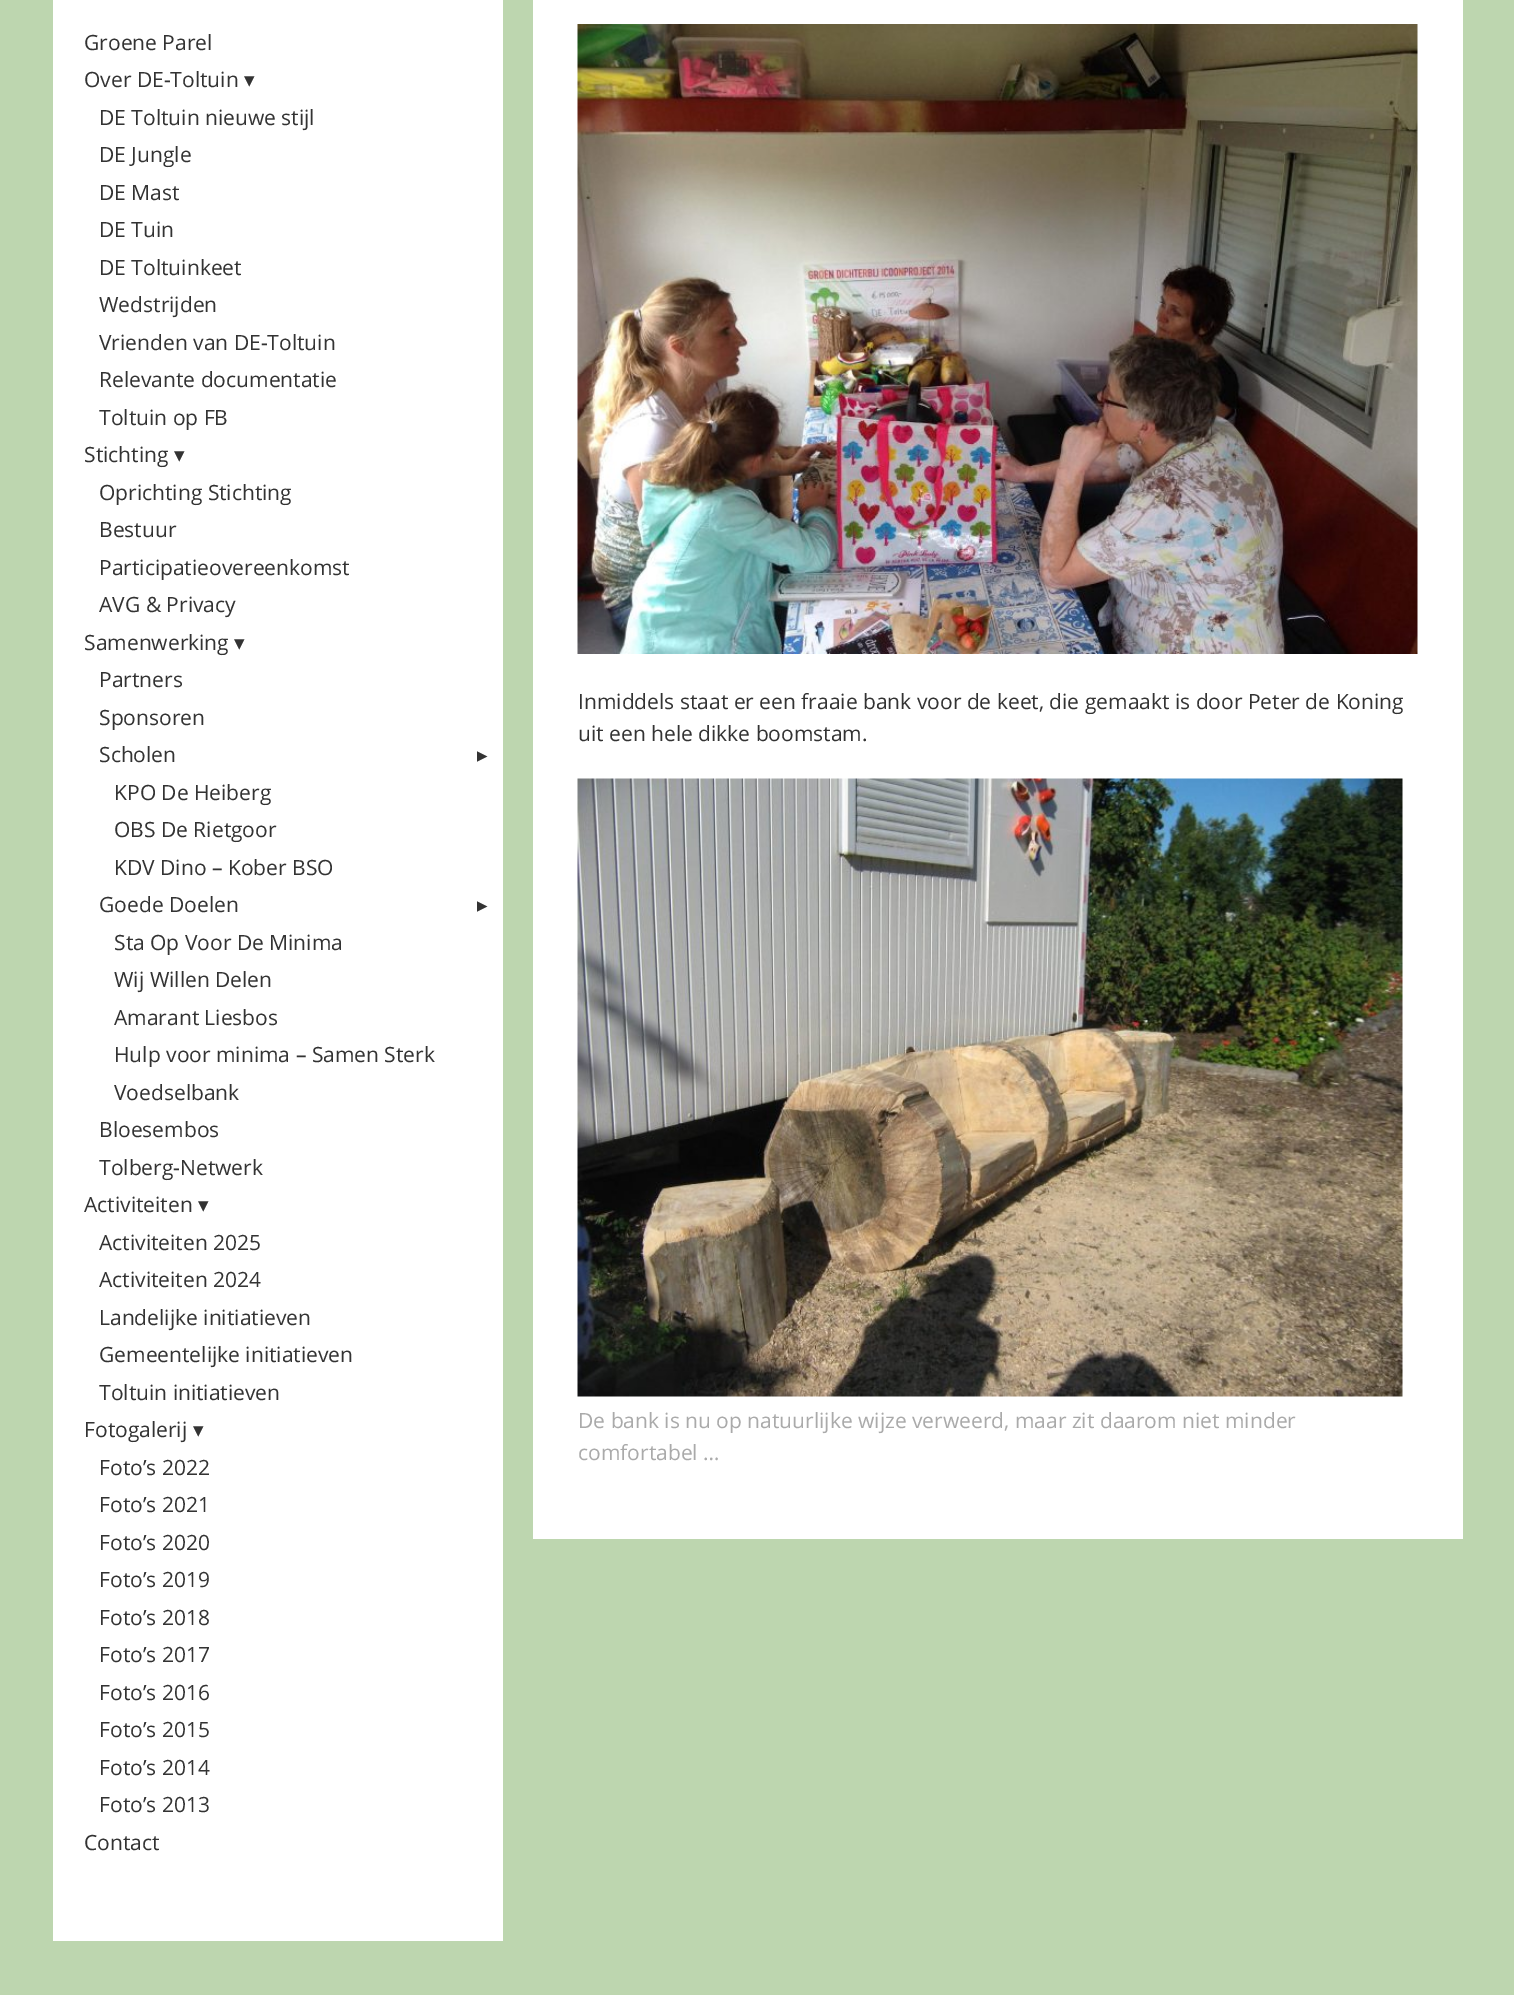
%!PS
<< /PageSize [1514 1995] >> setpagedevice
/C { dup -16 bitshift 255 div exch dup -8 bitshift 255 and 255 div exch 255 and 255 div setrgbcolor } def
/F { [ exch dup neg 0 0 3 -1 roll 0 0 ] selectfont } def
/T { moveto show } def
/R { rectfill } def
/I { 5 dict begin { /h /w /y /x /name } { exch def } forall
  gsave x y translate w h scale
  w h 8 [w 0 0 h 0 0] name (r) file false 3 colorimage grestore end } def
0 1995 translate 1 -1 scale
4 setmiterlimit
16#BDD6AF C
0 0 1514 1995 R
16#FFFFFF C
53 0 450 1941 R
/OpenSans-Regular 21 F
16#333333 C
(Groene Parel) 84 50 T
(Over DE-Toltuin) 84 87 T
/DejaVuSans-Regular 21 F
(▾) 244 87 T
/OpenSans-Regular 21 F
(DE Toltuin nieuwe stijl) 99 125 T
(DE Jungle) 99 162 T
(DE Mast) 99 200 T
(DE Tuin) 99 237 T
(DE Toltuinkeet) 99 275 T
(Wedstrijden) 99 312 T
(Vrienden van DE-Toltuin) 99 350 T
(Relevante documentatie) 99 387 T
(Toltuin op FB) 99 425 T
(Stichting) 84 462 T
/DejaVuSans-Regular 21 F
(▾) 174 462 T
/OpenSans-Regular 21 F
(Oprichting Stichting) 99 500 T
(Bestuur) 99 537 T
(Participatieovereenkomst) 99 575 T
(AVG & Privacy) 99 612 T
(Samenwerking) 84 650 T
/DejaVuSans-Regular 21 F
(▾) 234 650 T
/OpenSans-Regular 21 F
(Partners) 99 687 T
(Sponsoren) 99 725 T
(Scholen) 99 762 T
/DejaVuSans-Regular 21 F
(▸) 477 762 T
/OpenSans-Regular 21 F
(KPO De Heiberg) 114 800 T
(OBS De Rietgoor) 114 837 T
(KDV Dino – Kober BSO) 114 875 T
(Goede Doelen) 99 912 T
/DejaVuSans-Regular 21 F
(▸) 477 912 T
/OpenSans-Regular 21 F
(Sta Op Voor De Minima) 114 950 T
(Wij Willen Delen) 114 987 T
(Amarant Liesbos) 114 1025 T
(Hulp voor minima – Samen Sterk) 114 1062 T
(Voedselbank) 114 1100 T
(Bloesembos) 99 1137 T
(Tolberg-Netwerk) 99 1175 T
(Activiteiten) 84 1212 T
/DejaVuSans-Regular 21 F
(▾) 198 1212 T
/OpenSans-Regular 21 F
(Activiteiten 2025) 99 1250 T
(Activiteiten 2024) 99 1287 T
(Landelijke initiatieven) 99 1325 T
(Gemeentelijke initiatieven) 99 1362 T
(Toltuin initiatieven) 99 1400 T
(Fotogalerij) 84 1437 T
/DejaVuSans-Regular 21 F
(▾) 193 1437 T
/OpenSans-Regular 21 F
(Foto’s 2022) 99 1475 T
(Foto’s 2021) 99 1512 T
(Foto’s 2020) 99 1550 T
(Foto’s 2019) 99 1587 T
(Foto’s 2018) 99 1625 T
(Foto’s 2017) 99 1662 T
(Foto’s 2016) 99 1700 T
(Foto’s 2015) 99 1737 T
(Foto’s 2014) 99 1775 T
(Foto’s 2013) 99 1812 T
(Contact) 84 1850 T
16#FFFFFF C
533 0 930 1539 R
(1.rgb) 577 24 841 630 I
16#333333 C
(Inmiddels staat er een fraaie bank voor de keet, die gemaakt is door Peter de Koning) 578 709 T
(uit een hele dikke boomstam.) 578 741 T
(2.rgb) 577 778 826 619 I
16#AAAAAA C
(De bank is nu op natuurlijke wijze verweerd, maar zit daarom niet minder) 578 1428 T
(comfortabel …) 578 1460 T
showpage
